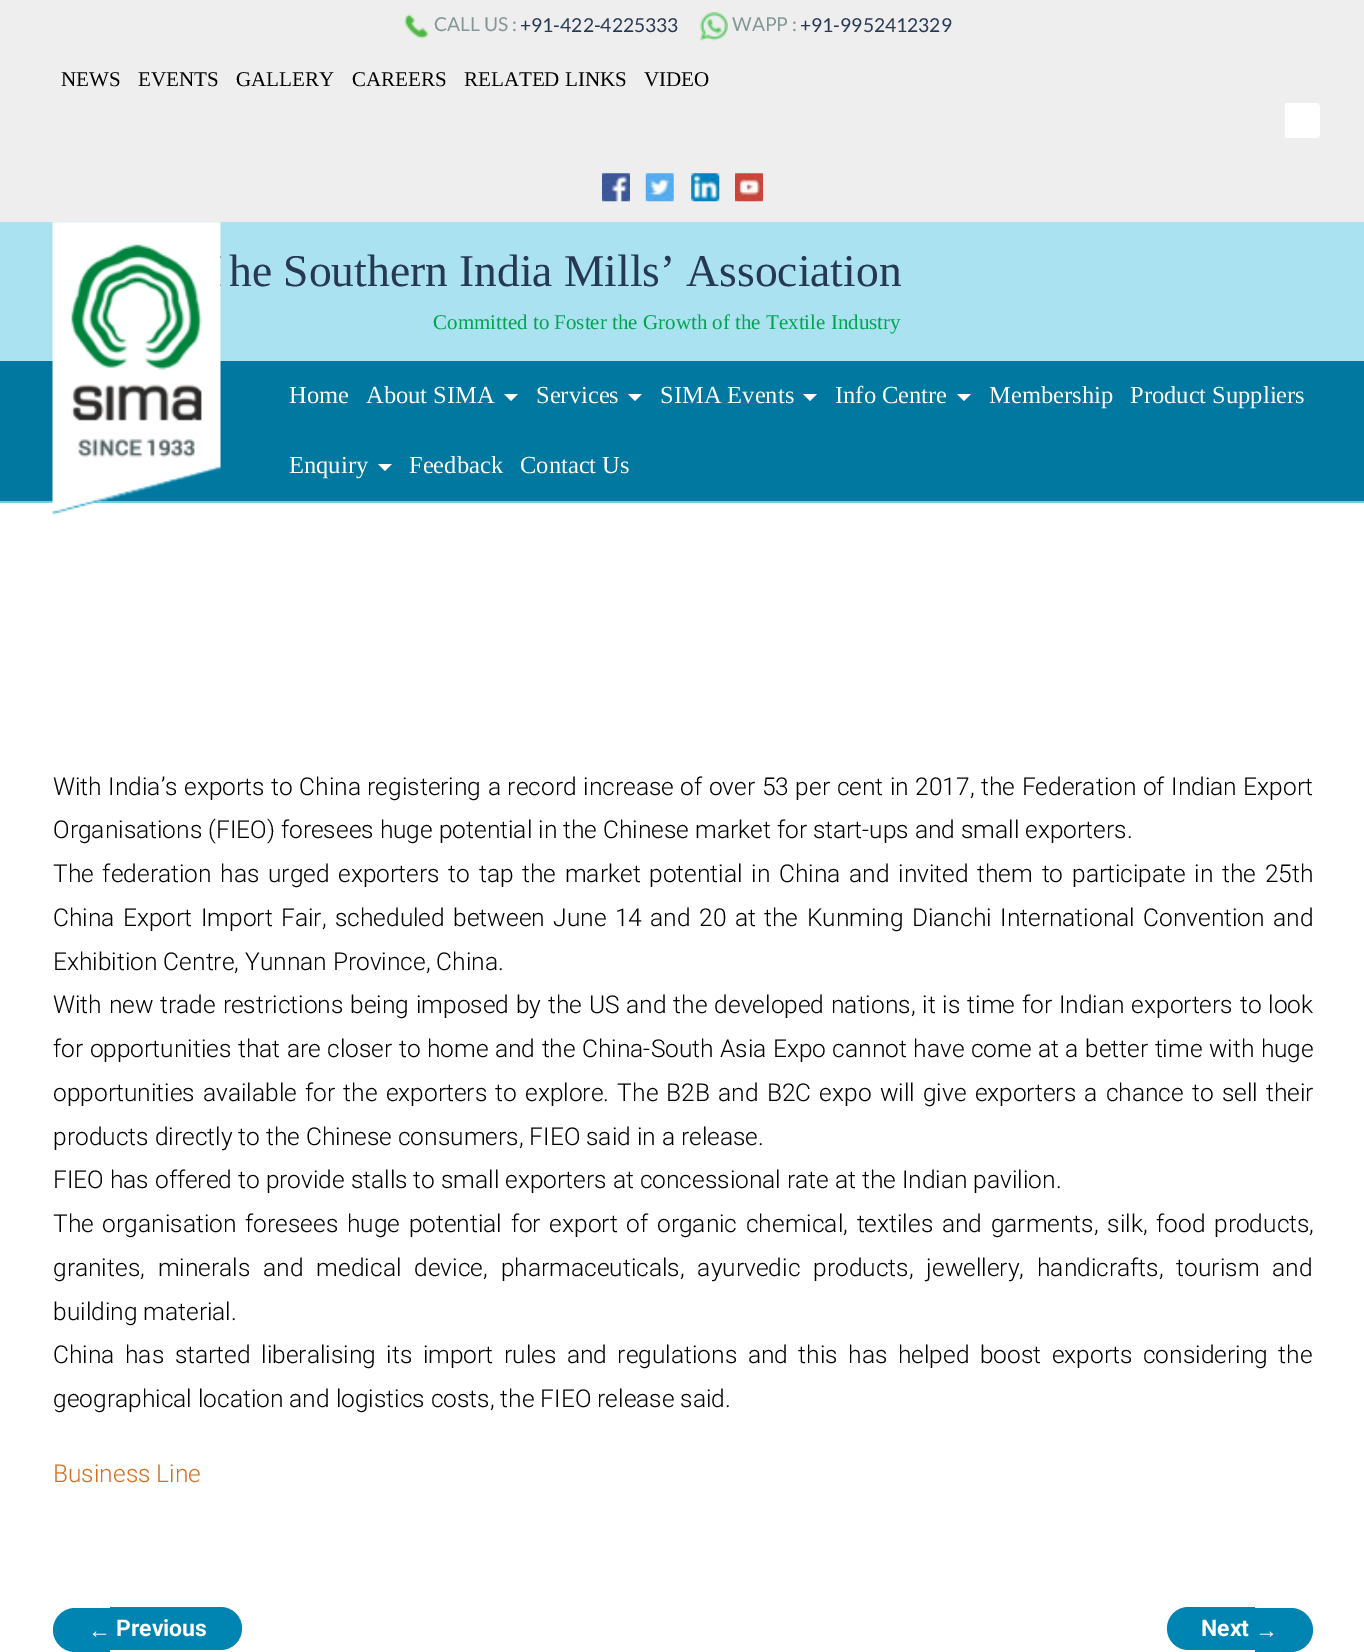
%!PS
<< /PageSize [1364 1652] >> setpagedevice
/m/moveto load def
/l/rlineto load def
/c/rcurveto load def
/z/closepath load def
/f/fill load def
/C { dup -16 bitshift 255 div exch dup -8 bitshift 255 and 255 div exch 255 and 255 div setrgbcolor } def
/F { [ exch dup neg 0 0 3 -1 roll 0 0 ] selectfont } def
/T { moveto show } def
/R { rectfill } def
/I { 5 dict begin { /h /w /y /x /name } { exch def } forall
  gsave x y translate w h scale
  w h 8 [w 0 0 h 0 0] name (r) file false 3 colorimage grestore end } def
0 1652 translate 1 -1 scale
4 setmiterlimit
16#FFFFFF C
0 0 1364 1652 R
16#EEEEEE C
0 0 1364 222 R
(1.rgb) 404 13 25 26 I
/Lato-Regular 19.25 F
16#839896 C
(CALL US :) 434 31 T
16#273952 C
(+91-422-4225333) 520 32 T
(2.rgb) 700 12 28 29 I
16#839896 C
(WAPP :) 732 31 T
16#273952 C
(+91-9952412329) 800 32 T
/LiberationSerif-Regular 21 F
16#000000 C
(NEWS) 61 86 T
(EVENTS) 138 86 T
(GALLERY) 236 86 T
(CAREERS) 352 86 T
(RELATED LINKS) 464 86 T
(VIDEO) 644 86 T
16#FFFFFF C
1285 103 m 31 0 l 2 0 4 2 4 4 c 0 27 l 0 2 -2 4 -4 4 c -31 0 l z f
(3.rgb) 602 173 28 29 I
(4.rgb) 645 173 29 29 I
(5.rgb) 691 173 29 29 I
(6.rgb) 735 173 28 29 I
16#AAE2F1 C
0 222 1364 139 R
16#00789F C
0 361 1364 140 R
16#6ECEE8 C
0 501 1364 2 R
(7.rgb) 52 222 169 293 I
/LiberationSerif-Regular 45.5 F
16#273952 C
(he Southern India Mills’ Association) 229 286 T
/LiberationSerif-Regular 21 F
16#00A44D C
(Committed to Foster the Growth of the Textile Industry) 433 329 T
/LiberationSerif-Regular 24.5 F
16#FFFFFF C
(Home) 289 403 T
(About SIMA) 366 403 T
504 394 m 14 0 l -7 7 l z f
(Services) 536 403 T
628 394 m 14 0 l -7 7 l z f
(SIMA Events) 660 403 T
803 394 m 14 0 l -7 7 l z f
(Info Centre) 835 403 T
957 394 m 14 0 l -7 7 l z f
(Membership) 989 403 T
(Product Suppliers) 1130 403 T
(Enquiry) 289 473 T
378 464 m 14 0 l -7 7 l z f
(Feedback) 409 473 T
(Contact Us) 520 473 T
/Roboto-Light 24.5 F
16#000000 C
53 795 m .6 0 32 (With India’s exports to China registering a record increase of over 53 per cent in 2017, the Federation of Indian Export) widthshow
(Organisations \(FIEO\) foresees huge potential in the Chinese market for start-ups and small exporters.) 53 838 T
53 882 m 2.75 0 32 (The federation has urged exporters to tap the market potential in China and invited them to participate in the 25th) widthshow
53 926 m 2.5 0 32 (China Export Import Fair, scheduled between June 14 and 20 at the Kunming Dianchi International Convention and) widthshow
(Exhibition Centre, Yunnan Province, China.) 53 970 T
53 1013 m .9 0 32 (With new trade restrictions being imposed by the US and the developed nations, it is time for Indian exporters to look) widthshow
53 1057 m .5 0 32 (for opportunities that are closer to home and the China-South Asia Expo cannot have come at a better time with huge) widthshow
53 1101 m 2.25 0 32 (opportunities available for the exporters to explore. The B2B and B2C expo will give exporters a chance to sell their) widthshow
(products directly to the Chinese consumers, FIEO said in a release.) 53 1145 T
(FIEO has offered to provide stalls to small exporters at concessional rate at the Indian pavilion.) 53 1188 T
53 1232 m 2.75 0 32 (The organisation foresees huge potential for export of organic chemical, textiles and garments, silk, food products,) widthshow
53 1276 m 7 0 32 (granites, minerals and medical device, pharmaceuticals, ayurvedic products, jewellery, handicrafts, tourism and) widthshow
(building material.) 53 1320 T
53 1363 m 4.6 0 32 (China has started liberalising its import rules and regulations and this has helped boost exports considering the) widthshow
(geographical location and logistics costs, the FIEO release said.) 53 1407 T
16#D46E1E C
(Business Line) 53 1482 T
16#0085B2 C
75 1608 m 35 0 l 0 44 l -35 0 l -12 0 -22 -10 -22 -22 c 0 -12 10 -22 22 -22 c z f
/LiberationSans-Bold 23 F
16#FFFFFF C
(←) 88 1638 T
16#0085B2 C
110 1607 m 110.5 0 l 12 0 21.5 9.5 21.5 21.5 c 0 12 -9.5 21.5 -21.5 21.5 c -110.5 0 l z f
/Roboto-Bold 23 F
16#FFFFFF C
(Previous) 116 1636 T
16#0085B2 C
1188.5 1607 m 66.5 0 l 0 43 l -66.5 0 l -12 0 -21.5 -9.5 -21.5 -21.5 c 0 -12 9.5 -21.5 21.5 -21.5 c z f
16#FFFFFF C
(Next) 1201 1636 T
16#0085B2 C
1255 1608 m 36 0 l 12 0 22 10 22 22 c 0 12 -10 22 -22 22 c -36 0 l z f
/LiberationSans-Bold 23 F
16#FFFFFF C
(→) 1255 1638 T
showpage
